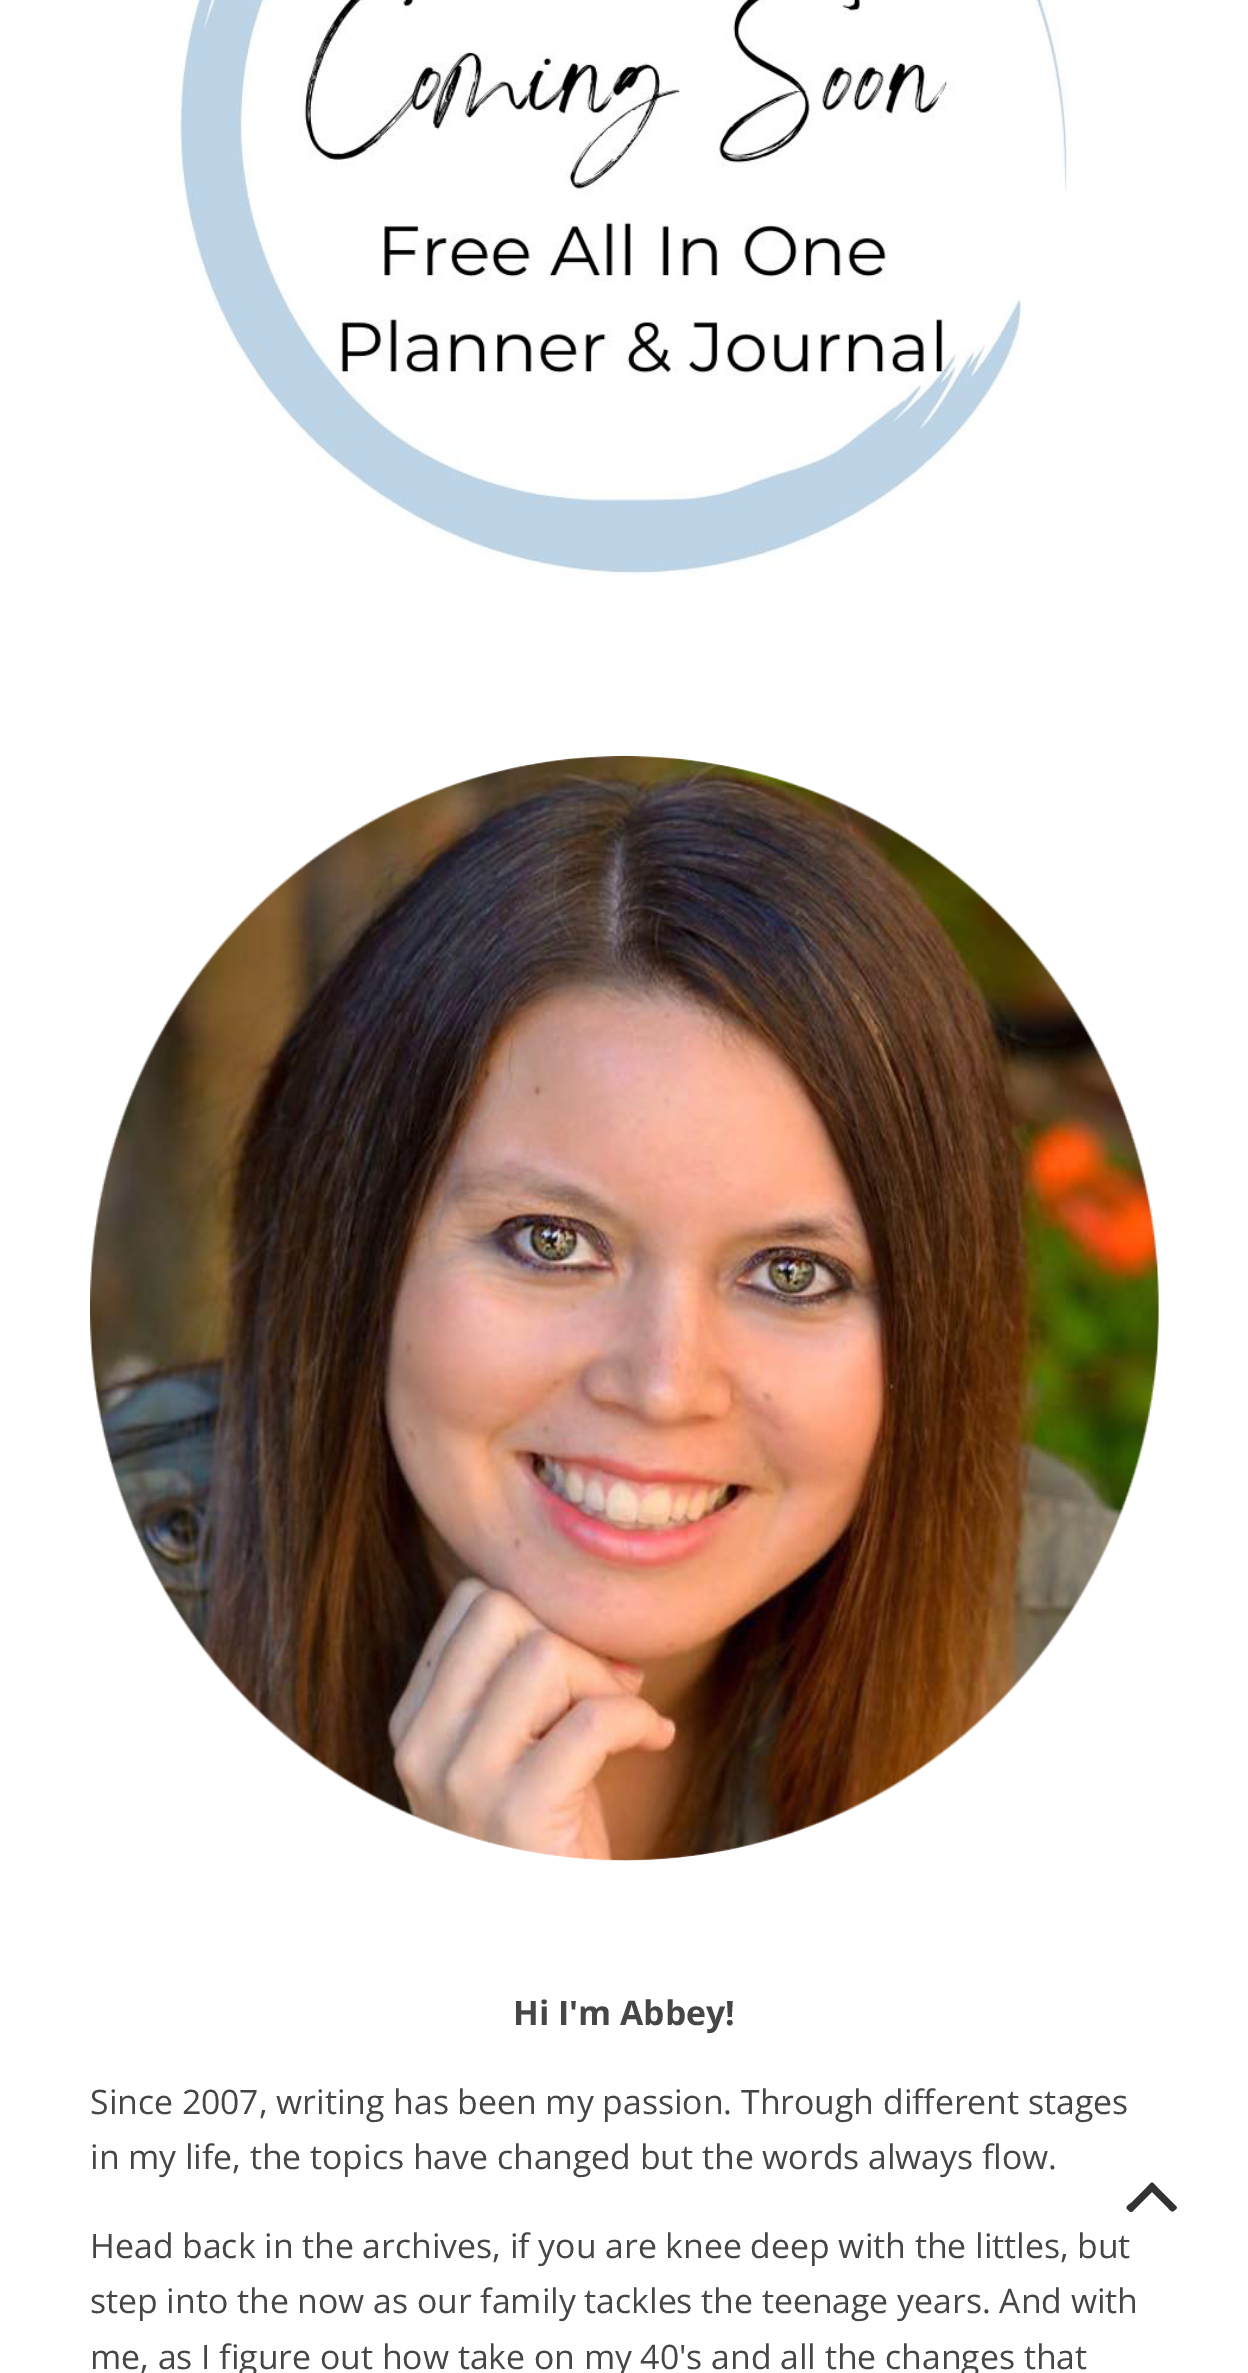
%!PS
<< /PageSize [1248 2373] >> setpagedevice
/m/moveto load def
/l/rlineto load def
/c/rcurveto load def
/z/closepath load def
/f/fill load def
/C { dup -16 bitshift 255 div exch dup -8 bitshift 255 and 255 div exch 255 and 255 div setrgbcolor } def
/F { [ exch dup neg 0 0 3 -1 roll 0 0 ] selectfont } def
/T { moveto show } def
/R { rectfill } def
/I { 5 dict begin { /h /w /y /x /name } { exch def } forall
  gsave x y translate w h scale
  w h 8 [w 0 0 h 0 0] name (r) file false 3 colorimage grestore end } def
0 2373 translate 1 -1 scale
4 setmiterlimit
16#FFFFFF C
0 0 1248 2373 R
(1.rgb) 176 0 897 584 I
(2.rgb) 90 755 1069 1106 I
/OpenSans-Bold 33.75 F
16#464646 C
(Hi I'm Abbey!) 513 2025 T
/OpenSans-Regular 33.75 F
(Since 2007, writing has been my passion. Through different stages) 90 2114 T
(in my life, the topics have changed but the words always flow.) 90 2169 T
(Head back in the archives, if you are knee deep with the littles, but) 90 2258 T
(step into the now as our family tackles the teenage years. And with) 90 2313 T
(me, as I figure out how take on my 40's and all the changes that) 90 2369 T
16#333333 C
1176 2206 m 2 2 0 3 -1 4 c -3 3 -4 1 -7 -2 c -16 -16 l -20 20 l -2 0 -3 -1 -4 -2 c -3 -3 -1 -4 3 -7 c 16 -16 l 6 -6 4 -6 10 0 c z f
showpage
